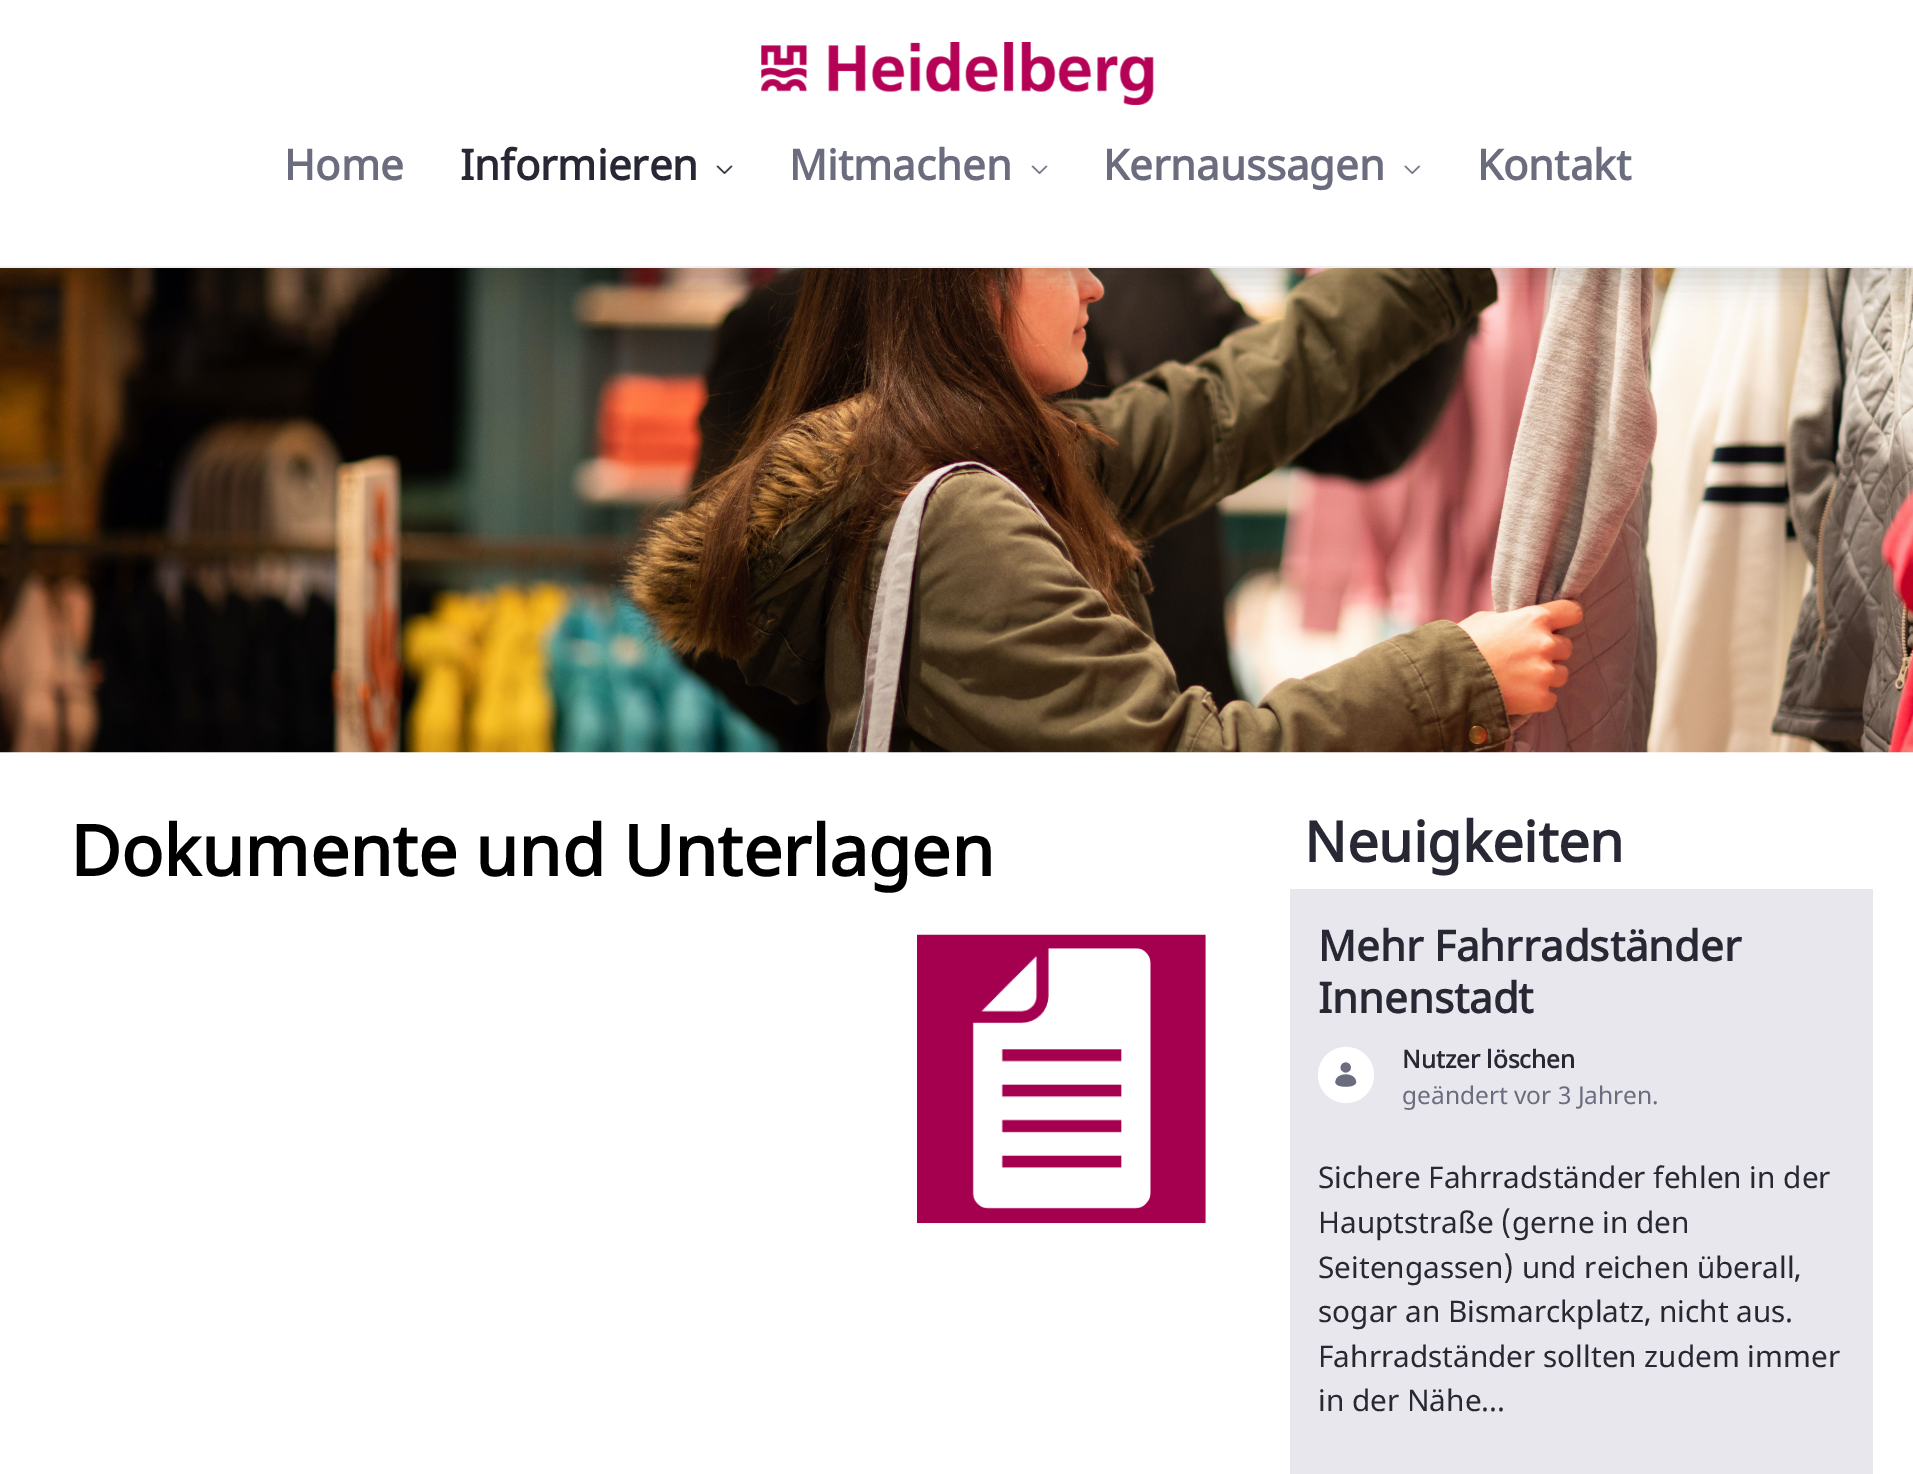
%!PS
<< /PageSize [1913 1474] /PageUsesTransparency true >> setpagedevice
/f/fill load def
/C { dup -16 bitshift 255 div exch dup -8 bitshift 255 and 255 div exch 255 and 255 div setrgbcolor } def
/F { [ exch dup neg 0 0 3 -1 roll 0 0 ] selectfont } def
/T { moveto show } def
/R { rectfill } def
/A { dup .setfillconstantalpha .setstrokeconstantalpha } def
/O { newpath 0 360 arc closepath } def
/Q { 5 dict begin { /r /h /w /y /x } { exch def } forall
  x r add y moveto x w add y 2 copy h add r arct x w add y h add x 1 index r arct
  x y h add x y r arct x y 2 copy exch w add exch r arct closepath end } def
/S { 12 dict begin { /a /b /q /h /w /y /x } { exch def } forall gsave /was 0 def
  9 -2 -9 { dup b mul 4 div /e exch def 1 sub .425 mul 2.718 exch exp 1 add a .99 .min exch div /now exch def
    1 1 now sub 1 was sub div sub A /was now def
    w h .min e 2 mul add 0 gt { x e sub y e sub w e 2 mul add h e 2 mul add
      q e add b .6 mul add w h .min 2 div e add .min 0 .max Q fill } if } for grestore end } def
/I { 5 dict begin { /h /w /y /x /name } { exch def } forall
  gsave x y translate w h scale
  w h 8 [w 0 0 h 0 0] name (r) file false 3 colorimage grestore end } def
0 .pushpdf14devicefilter
0 1474 translate 1 -1 scale
4 setmiterlimit
16#FFFFFF C
0 0 1913 1474 R
(5.rgb) 0 268 1913 485 I
16#000000 C
0 14 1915 268 0 14 .15 S
16#FFFFFF C
0 0 1913 266 R
16#F1F2F5 C
0 266 1913 2 R
(1.rgb) 761 42 393 63 I
/NotoSans-Bold 42 F
16#6B6C7E C
(Home) 284 180 T
16#272833 C
(Informieren) 460 180 T
(2.rgb) 716 165 17 9 I
16#6B6C7E C
(Mitmachen) 789 180 T
(3.rgb) 1031 165 17 9 I
(Kernaussagen) 1103 180 T
(4.rgb) 1403 165 18 9 I
(Kontakt) 1477 180 T
/NotoSans-Bold 70 F
16#000000 C
(Dokumente und Unterlagen) 70 876 T
(6.rgb) 917 934 289 290 I
/NotoSans-Bold 56 F
16#272833 C
(Neuigkeiten) 1304 862 T
16#E7E7ED C
1290 889 583 585 R
/NotoSans-Bold 42 F
16#272833 C
(Mehr Fahrradständer) 1318 961 T
(Innenstadt) 1318 1013 T
16#FFFFFF C
1346 1075 28 O f
(7.rgb) 1335 1062 22 25 I
/NotoSans-Bold 24.5 F
16#272833 C
(Nutzer löschen) 1402 1068 T
/NotoSans-Regular 24.5 F
16#6B6C7E C
(geändert vor 3 Jahren.) 1402 1104 T
/NotoSans-Regular 29.75 F
16#272833 C
(Sichere Fahrradständer fehlen in der) 1318 1188 T
(Hauptstraße \(gerne in den) 1318 1233 T
(Seitengassen\) und reichen überall,) 1318 1278 T
(sogar an Bismarckplatz, nicht aus.) 1318 1322 T
(Fahrradständer sollten zudem immer) 1318 1367 T
(in der Nähe...) 1318 1411 T
.poppdf14devicefilter showpage
